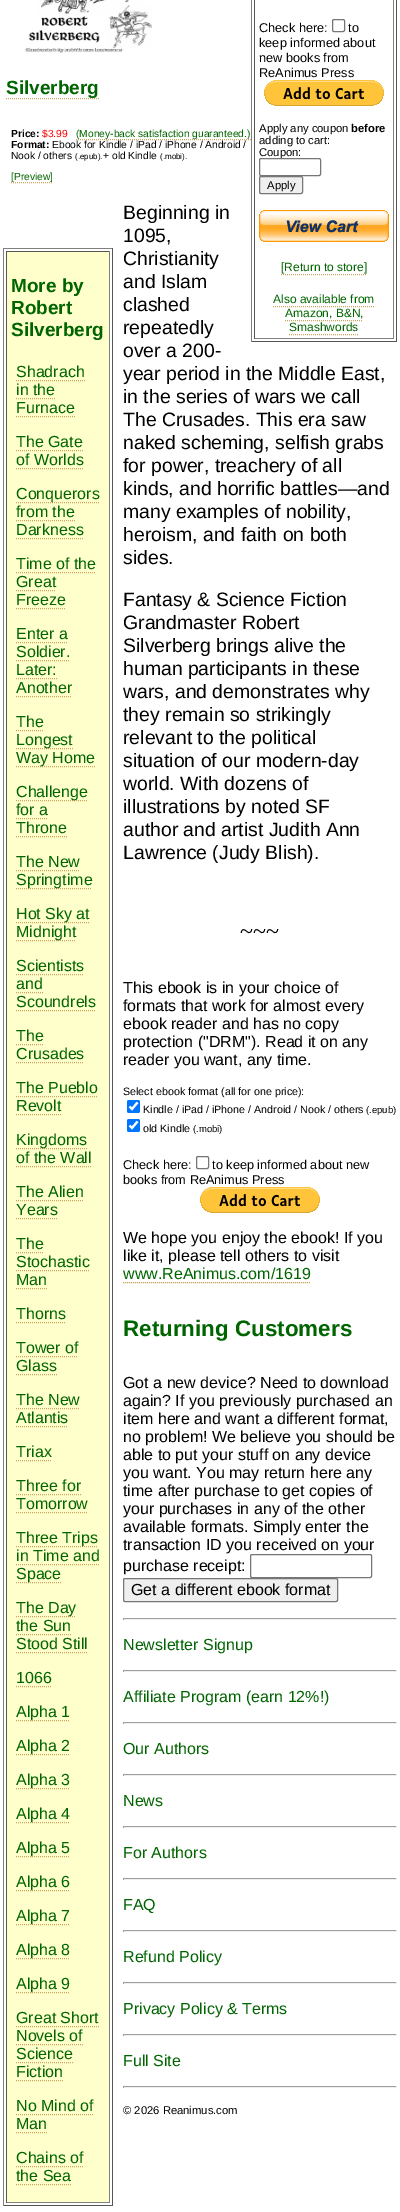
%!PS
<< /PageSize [400 2212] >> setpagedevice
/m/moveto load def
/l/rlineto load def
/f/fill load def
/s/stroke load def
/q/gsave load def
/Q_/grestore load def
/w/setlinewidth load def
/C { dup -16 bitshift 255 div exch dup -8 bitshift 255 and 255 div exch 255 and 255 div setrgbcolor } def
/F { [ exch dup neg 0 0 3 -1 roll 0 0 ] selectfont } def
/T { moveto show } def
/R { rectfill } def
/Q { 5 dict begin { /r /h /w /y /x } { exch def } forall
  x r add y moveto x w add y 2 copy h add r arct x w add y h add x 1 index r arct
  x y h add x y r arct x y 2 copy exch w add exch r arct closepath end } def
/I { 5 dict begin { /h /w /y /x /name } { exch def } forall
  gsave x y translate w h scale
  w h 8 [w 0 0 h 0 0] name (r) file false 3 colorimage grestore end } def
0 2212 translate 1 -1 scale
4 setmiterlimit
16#FFFFFF C
0 0 400 2212 R
(1.rgb) 25 0 127 53 I
16#555555 C
396 0 1 342 R
251 341 146 1 R
16#808080 C
251 0 1 342 R
393 0 1 339 R
254 338 140 1 R
16#555555 C
254 0 1 339 R
/LiberationSans-Regular 12.75 F
16#000000 C
(Check here:) 259 32 T
16#767676 C
332.5 19.5 12 12 1.5 Q s
16#000000 C
(to) 348 32 T
(keep informed about) 259 47 T
(new books from) 259 62 T
(ReAnimus Press) 259 77 T
(2.rgb) 264 80 120 26 I
/LiberationSans-Regular 11.25 F
(Apply any coupon) 259 132 T
/LiberationSans-Bold 11.25 F
(before) 351 132 T
/LiberationSans-Regular 11.25 F
(adding to cart:) 259 144 T
(Coupon:) 259 156 T
16#FFFFFF C
259.5 158.5 61 17 1.5 Q q f Q_
16#767676 C
s
16#EFEFEF C
259.5 176.5 43 17 1.5 Q q f Q_
16#767676 C
s
16#000000 C
(Apply) 267 189 T
(3.rgb) 259 210 130 32 I
/LiberationSans-Regular 12 F
16#006400 C
([Return to store]) 281 271 T
16#CCA562 C
[1 1] 0 setdash
281 274.5 m 86 0 l s
16#006400 C
(Also available from) 273 303 T
(Amazon, B&N,) 285 317 T
16#CCA562 C
273 306.5 m 102 0 l s
16#006400 C
(Smashwords) 289 331 T
16#CCA562 C
285 320.5 m 78 0 l s
289 334.5 m 70 0 l s
6 98.5 m 94 0 l s
/LiberationSans-Bold 19 F
16#006400 C
(Silverberg) 6 94 T
/LiberationSans-Bold 10.25 F
16#000000 C
(Price:) 11 137 T
/LiberationSans-Regular 10.25 F
16#FF0000 C
($3.99) 42 137 T
16#CCA562 C
76 139.5 m 175 0 l s
16#006400 C
(\(Money-back satisfaction guaranteed.\)) 76 137 T
/LiberationSans-Bold 10.25 F
16#000000 C
(Format:) 11 148 T
/LiberationSans-Regular 10.25 F
(Ebook for Kindle / iPad / iPhone / Android /) 52 148 T
(Nook / others) 11 159 T
/LiberationSans-Regular 8 F
(\(.epub\).) 75 159 T
/LiberationSans-Regular 10.25 F
(+ old Kindle) 103 159 T
/LiberationSans-Regular 8 F
(\(.mobi\).) 160 159 T
16#CCA562 C
11 182.5 m 42 0 l s
/LiberationSans-Regular 10.25 F
16#006400 C
([Preview]) 11 180 T
16#808080 C
3 248 110 1 R
16#555555 C
112 248 1 1958 R
3 2205 110 1 R
16#808080 C
3 248 1 1958 R
16#FFFFCC C
7 252 102 1950 R
16#555555 C
6 251 104 1 R
16#808080 C
109 251 1 1952 R
6 2202 104 1 R
16#555555 C
6 251 1 1952 R
/LiberationSans-Bold 19 F
16#006400 C
(More by) 11 292 T
(Robert) 11 314 T
(Silverberg) 11 336 T
/LiberationSans-Regular 16 F
(Shadrach) 16 377 T
16#CCA562 C
16 380.5 m 69 0 l s
16#006400 C
(in the) 16 395 T
16#CCA562 C
16 398.5 m 39 0 l 16 416.5 m 59 0 l s
16#006400 C
(Furnace) 16 413 T
(The Gate) 16 447 T
16#CCA562 C
16 450.5 m 67 0 l s
16#006400 C
(of Worlds) 16 465 T
16#CCA562 C
16 468.5 m 68 0 l s
16 502.5 m 84 0 l s
16#006400 C
(Conquerors) 16 499 T
(from the) 16 517 T
16#CCA562 C
16 520.5 m 59 0 l s
16#006400 C
(Darkness) 16 535 T
16#CCA562 C
16 538.5 m 68 0 l s
16#006400 C
(Time of the) 16 569 T
16#CCA562 C
16 572.5 m 80 0 l s
16#006400 C
(Great) 16 587 T
16#CCA562 C
16 590.5 m 40 0 l 16 608.5 m 50 0 l s
16#006400 C
(Freeze) 16 605 T
(Enter a) 16 639 T
16#CCA562 C
16 642.5 m 52 0 l 16 660.5 m 54 0 l 16 678.5 m 41 0 l 16 696.5 m 56 0 l s
16#006400 C
(Soldier.) 16 657 T
(Later:) 16 675 T
(Another) 16 693 T
(The) 16 727 T
16#CCA562 C
16 730.5 m 28 0 l 16 748.5 m 57 0 l s
16#006400 C
(Longest) 16 745 T
16#CCA562 C
16 766.5 m 79 0 l s
16#006400 C
(Way Home) 16 763 T
16#CCA562 C
16 800.5 m 72 0 l s
16#006400 C
(Challenge) 16 797 T
(for a) 16 815 T
16#CCA562 C
16 818.5 m 32 0 l 16 836.5 m 51 0 l s
16#006400 C
(Throne) 16 833 T
(The New) 16 867 T
16#CCA562 C
16 870.5 m 64 0 l s
16 888.5 m 76 0 l s
16#006400 C
(Springtime) 16 885 T
16#CCA562 C
16 922.5 m 74 0 l s
16#006400 C
(Hot Sky at) 16 919 T
16#CCA562 C
16 940.5 m 60 0 l s
16#006400 C
(Midnight) 16 937 T
(Scientists) 16 971 T
16#CCA562 C
16 974.5 m 68 0 l s
16#006400 C
(and) 16 989 T
16#CCA562 C
16 992.5 m 27 0 l s
16#006400 C
(Scoundrels) 16 1007 T
16#CCA562 C
16 1010.5 m 80 0 l s
16#006400 C
(The) 16 1041 T
16#CCA562 C
16 1044.5 m 28 0 l s
16#006400 C
(Crusades) 16 1059 T
16#CCA562 C
16 1062.5 m 68 0 l s
16#006400 C
(The Pueblo) 16 1093 T
16#CCA562 C
16 1096.5 m 82 0 l s
16#006400 C
(Revolt) 16 1111 T
16#CCA562 C
16 1114.5 m 45 0 l s
16 1148.5 m 71 0 l s
16#006400 C
(Kingdoms) 16 1145 T
(of the Wall) 16 1163 T
16#CCA562 C
16 1166.5 m 76 0 l s
16#006400 C
(The Alien) 16 1197 T
16#CCA562 C
16 1200.5 m 68 0 l s
16#006400 C
(Years) 16 1215 T
16#CCA562 C
16 1218.5 m 42 0 l s
16#006400 C
(The) 16 1249 T
16#CCA562 C
16 1252.5 m 28 0 l s
16#006400 C
(Stochastic) 16 1267 T
16#CCA562 C
16 1270.5 m 74 0 l s
16#006400 C
(Man) 16 1285 T
16#CCA562 C
16 1288.5 m 31 0 l s
16#006400 C
(Thorns) 16 1319 T
16#CCA562 C
16 1322.5 m 50 0 l s
16#006400 C
(Tower of) 16 1353 T
16#CCA562 C
16 1356.5 m 62 0 l 16 1374.5 m 41 0 l s
16#006400 C
(Glass) 16 1371 T
(The New) 16 1405 T
16#CCA562 C
16 1408.5 m 64 0 l 16 1426.5 m 52 0 l s
16#006400 C
(Atlantis) 16 1423 T
(Triax) 16 1457 T
16#CCA562 C
16 1460.5 m 36 0 l s
16#006400 C
(Three for) 16 1491 T
16#CCA562 C
16 1494.5 m 65 0 l s
16#006400 C
(Tomorrow) 16 1509 T
16#CCA562 C
16 1512.5 m 72 0 l s
16 1546.5 m 82 0 l s
16#006400 C
(Three Trips) 16 1543 T
(in Time and) 16 1561 T
16#CCA562 C
16 1564.5 m 84 0 l s
16 1582.5 m 45 0 l s
16#006400 C
(Space) 16 1579 T
16#CCA562 C
16 1616.5 m 60 0 l 16 1634.5 m 55 0 l s
16#006400 C
(The Day) 16 1613 T
(the Sun) 16 1631 T
(Stood Still) 16 1649 T
16#CCA562 C
16 1652.5 m 72 0 l s
16#006400 C
(1066) 16 1683 T
16#CCA562 C
16 1686.5 m 36 0 l s
16 1720.5 m 54 0 l s
16#006400 C
(Alpha 1) 16 1717 T
16#CCA562 C
16 1754.5 m 54 0 l s
16#006400 C
(Alpha 2) 16 1751 T
16#CCA562 C
16 1788.5 m 54 0 l s
16#006400 C
(Alpha 3) 16 1785 T
16#CCA562 C
16 1822.5 m 54 0 l s
16#006400 C
(Alpha 4) 16 1819 T
16#CCA562 C
16 1856.5 m 54 0 l s
16#006400 C
(Alpha 5) 16 1853 T
16#CCA562 C
16 1890.5 m 54 0 l s
16#006400 C
(Alpha 6) 16 1887 T
16#CCA562 C
16 1924.5 m 54 0 l s
16#006400 C
(Alpha 7) 16 1921 T
16#CCA562 C
16 1958.5 m 54 0 l s
16#006400 C
(Alpha 8) 16 1955 T
16#CCA562 C
16 1992.5 m 54 0 l s
16#006400 C
(Alpha 9) 16 1989 T
(Great Short) 16 2023 T
16#CCA562 C
16 2026.5 m 83 0 l s
16#006400 C
(Novels of) 16 2041 T
16#CCA562 C
16 2044.5 m 67 0 l s
16#006400 C
(Science) 16 2059 T
16#CCA562 C
16 2062.5 m 57 0 l 16 2080.5 m 47 0 l s
16#006400 C
(Fiction) 16 2077 T
(No Mind of) 16 2111 T
16#CCA562 C
16 2114.5 m 77 0 l s
16#006400 C
(Man) 16 2129 T
16#CCA562 C
16 2132.5 m 31 0 l s
16#006400 C
(Chains of) 16 2163 T
16#CCA562 C
16 2166.5 m 68 0 l s
16#006400 C
(the Sea) 16 2181 T
16#CCA562 C
16 2184.5 m 55 0 l s
/LiberationSans-Regular 19.4 F
16#000000 C
(Beginning in) 123 219 T
(1095,) 123 242 T
(Christianity) 123 265 T
(and Islam) 123 288 T
(clashed) 123 311 T
(repeatedly) 123 334 T
(over a 200-) 123 357 T
(year period in the Middle East,) 123 380 T
(in the series of wars we call) 123 403 T
(The Crusades. This era saw) 123 426 T
(naked scheming, selfish grabs) 123 449 T
(for power, treachery of all) 123 472 T
(kinds, and horrific battles—and) 123 495 T
(many examples of nobility,) 123 518 T
(heroism, and faith on both) 123 541 T
(sides.) 123 564 T
(Fantasy & Science Fiction) 123 606 T
(Grandmaster Robert) 123 629 T
(Silverberg brings alive the) 123 652 T
(human participants in these) 123 675 T
(wars, and demonstrates why) 123 698 T
(they remain so strikingly) 123 721 T
(relevant to the political) 123 744 T
(situation of our modern-day) 123 767 T
(world. With dozens of) 123 790 T
(illustrations by noted SF) 123 813 T
(author and artist Judith Ann) 123 836 T
(Lawrence \(Judy Blish\).) 123 859 T
/LiberationSerif-Regular 24 F
(~~~) 240 939 T
/LiberationSans-Regular 16 F
(This ebook is in your choice of) 123 993 T
(formats that work for almost every) 123 1011 T
(ebook reader and has no copy) 123 1029 T
(protection \("DRM"\). Read it on any) 123 1047 T
(reader you want, any time.) 123 1065 T
/LiberationSans-Regular 10.7 F
(Select ebook format \(all for one price\):) 123 1095 T
16#0075FF C
127 1100 13 13 2 Q f
16#FFFFFF C
2.1 w
[] 0 setdash
129.5 1106.5 m 2.5 2.5 l 5.5 -6.5 l s
16#000000 C
(Kindle / iPad / iPhone / Android / Nook / others) 143 1113 T
/LiberationSans-Regular 9.5 F
(\(.epub\)) 366 1113 T
16#0075FF C
127 1119 13 13 2 Q f
16#FFFFFF C
129.5 1125.5 m 2.5 2.5 l 5.5 -6.5 l s
/LiberationSans-Regular 10.7 F
16#000000 C
(old Kindle) 143 1132 T
/LiberationSans-Regular 9.5 F
(\(.mobi\)) 193 1132 T
/LiberationSans-Regular 12.75 F
(Check here:) 123 1169 T
16#767676 C
1 w
196.5 1156.5 12 12 1.5 Q s
16#000000 C
(to keep informed about new) 212 1169 T
(books from ReAnimus Press) 123 1184 T
(2.rgb) 200 1187 120 26 I
/LiberationSans-Regular 16 F
(We hope you enjoy the ebook! If you) 123 1243 T
(like it, please tell others to visit) 123 1261 T
16#006400 C
(www.ReAnimus.com/1619) 123 1279 T
16#CCA562 C
[1 1] 0 setdash
123 1282.5 m 187 0 l s
/LiberationSans-Bold 22.4 F
16#006400 C
(Returning Customers) 123 1336 T
/LiberationSans-Regular 16 F
16#000000 C
(Got a new device? Need to download) 123 1388 T
(again? If you previously purchased an) 123 1406 T
(item here and want a different format,) 123 1424 T
(no problem! We believe you should be) 123 1442 T
(able to put your stuff on any device) 123 1460 T
(you want. You may return here any) 123 1478 T
(time after purchase to get copies of) 123 1496 T
(your purchases in any of the other) 123 1514 T
(available formats. Simply enter the) 123 1532 T
(transaction ID you received on your) 123 1550 T
(purchase receipt:) 123 1571 T
16#767676 C
[] 0 setdash
250.5 1554.5 121 23 1.5 Q s
16#EFEFEF C
123.5 1578.5 214 23 1.5 Q q f Q_
16#767676 C
s
16#000000 C
(Get a different ebook format) 131 1595 T
16#9F9F9F C
123 1618 274 1 R
16#EEEEEE C
396 1618 1 2 R
123 1619 274 1 R
16#9F9F9F C
123 1618 1 2 R
16#006400 C
(Newsletter Signup) 123 1650 T
16#9F9F9F C
123 1670 274 1 R
16#EEEEEE C
396 1670 1 2 R
123 1671 274 1 R
16#9F9F9F C
123 1670 1 2 R
16#006400 C
(Affiliate Program \(earn 12%!\)) 123 1702 T
16#9F9F9F C
123 1722 274 1 R
16#EEEEEE C
396 1722 1 2 R
123 1723 274 1 R
16#9F9F9F C
123 1722 1 2 R
16#006400 C
(Our Authors) 123 1754 T
16#9F9F9F C
123 1774 274 1 R
16#EEEEEE C
396 1774 1 2 R
123 1775 274 1 R
16#9F9F9F C
123 1774 1 2 R
16#006400 C
(News) 123 1806 T
16#9F9F9F C
123 1826 274 1 R
16#EEEEEE C
396 1826 1 2 R
123 1827 274 1 R
16#9F9F9F C
123 1826 1 2 R
16#006400 C
(For Authors) 123 1858 T
16#9F9F9F C
123 1878 274 1 R
16#EEEEEE C
396 1878 1 2 R
123 1879 274 1 R
16#9F9F9F C
123 1878 1 2 R
16#006400 C
(FAQ) 123 1910 T
16#9F9F9F C
123 1930 274 1 R
16#EEEEEE C
396 1930 1 2 R
123 1931 274 1 R
16#9F9F9F C
123 1930 1 2 R
16#006400 C
(Refund Policy) 123 1962 T
16#9F9F9F C
123 1982 274 1 R
16#EEEEEE C
396 1982 1 2 R
123 1983 274 1 R
16#9F9F9F C
123 1982 1 2 R
16#006400 C
(Privacy Policy & Terms) 123 2014 T
16#9F9F9F C
123 2034 274 1 R
16#EEEEEE C
396 2034 1 2 R
123 2035 274 1 R
16#9F9F9F C
123 2034 1 2 R
16#006400 C
(Full Site) 123 2066 T
16#9F9F9F C
123 2086 274 1 R
16#EEEEEE C
396 2086 1 2 R
123 2087 274 1 R
16#9F9F9F C
123 2086 1 2 R
/LiberationSans-Regular 11.25 F
16#000000 C
(© 2026 Reanimus.com) 123 2114 T
showpage
